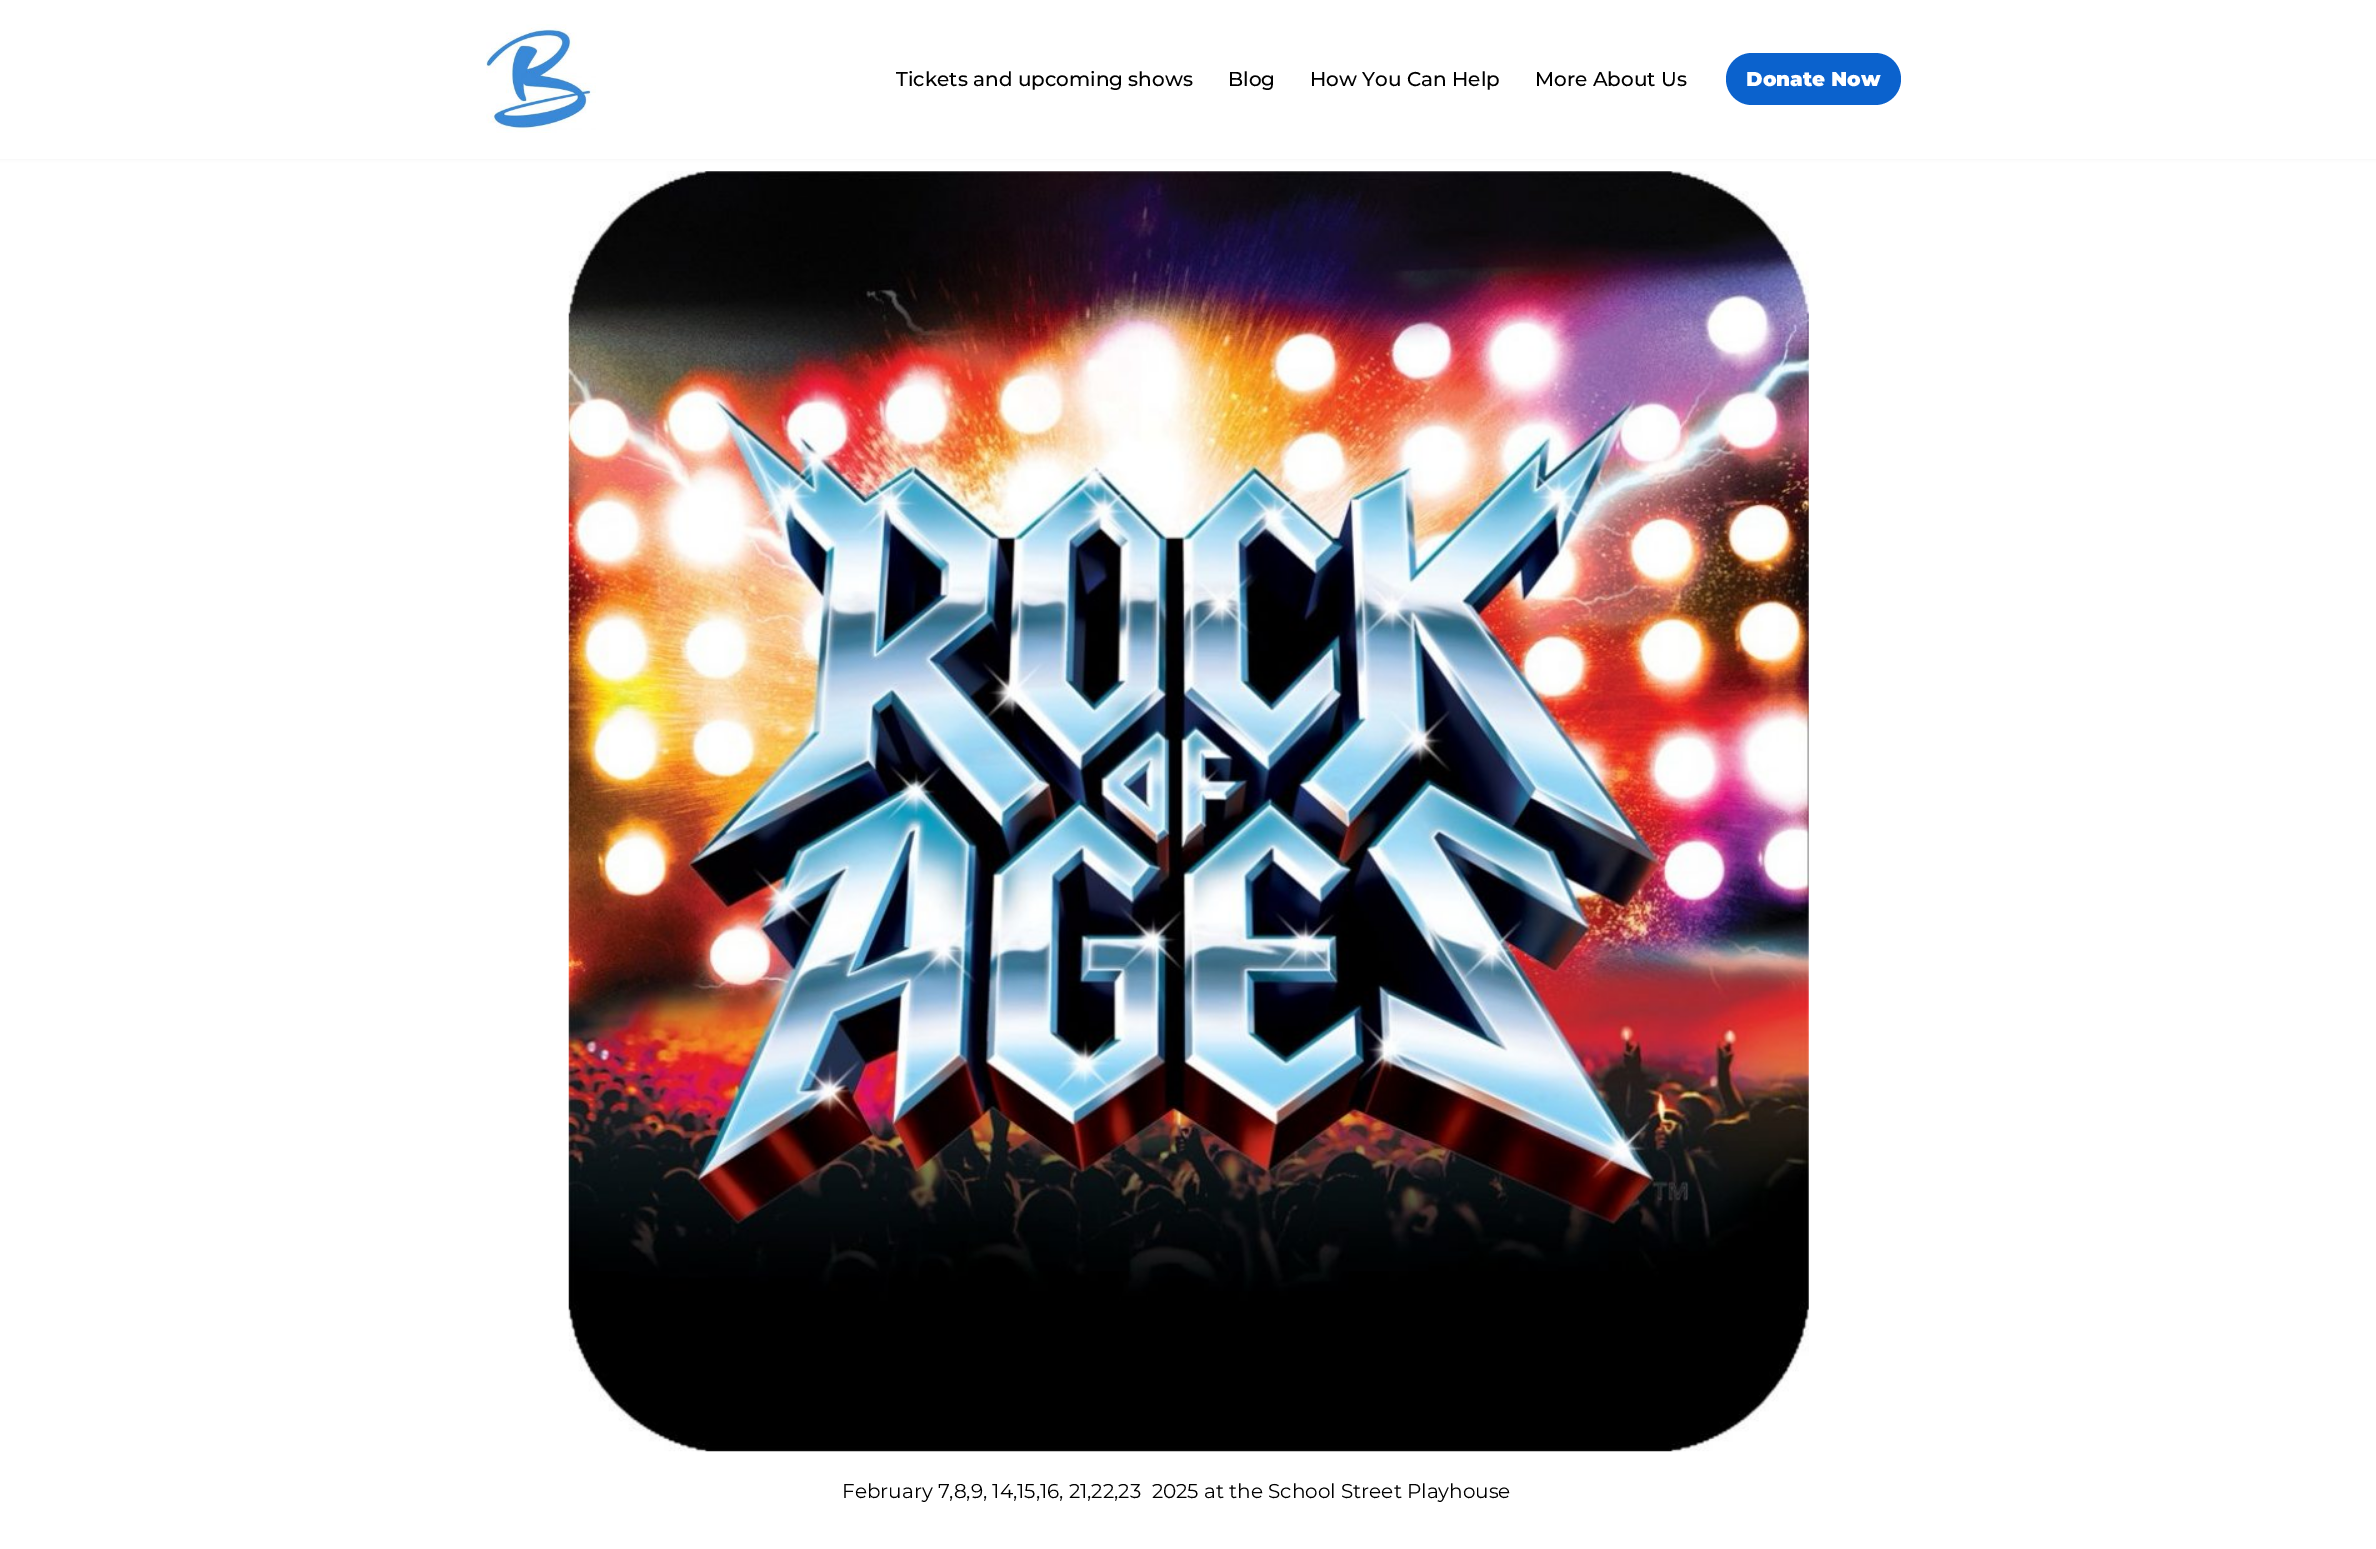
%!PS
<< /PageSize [2376 1549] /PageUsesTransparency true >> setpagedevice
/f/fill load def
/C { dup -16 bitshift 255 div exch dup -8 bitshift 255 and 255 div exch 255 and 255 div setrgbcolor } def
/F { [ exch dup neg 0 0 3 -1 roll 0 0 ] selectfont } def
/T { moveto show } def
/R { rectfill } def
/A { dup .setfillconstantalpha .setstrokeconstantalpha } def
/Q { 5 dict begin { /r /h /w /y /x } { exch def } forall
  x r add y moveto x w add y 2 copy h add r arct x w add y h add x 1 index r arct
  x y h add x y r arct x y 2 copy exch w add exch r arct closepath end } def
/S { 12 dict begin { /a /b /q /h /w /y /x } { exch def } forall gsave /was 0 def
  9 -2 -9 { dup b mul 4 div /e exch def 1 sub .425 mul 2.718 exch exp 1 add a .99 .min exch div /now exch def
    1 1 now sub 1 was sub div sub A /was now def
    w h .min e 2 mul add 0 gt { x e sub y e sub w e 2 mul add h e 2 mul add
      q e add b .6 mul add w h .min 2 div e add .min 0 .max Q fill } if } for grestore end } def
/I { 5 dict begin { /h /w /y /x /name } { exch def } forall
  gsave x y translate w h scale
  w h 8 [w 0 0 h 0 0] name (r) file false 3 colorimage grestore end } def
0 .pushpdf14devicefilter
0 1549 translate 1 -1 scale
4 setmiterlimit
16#FFFFFF C
0 0 2376 1549 R
16#000000 C
0 -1 2376 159 0 2 .1 S
16#FFFFFF C
0 0 2376 159 R
(1.rgb) 486 24 110 109 I
/Montserrat-Medium 20 F
16#000000 C
(Tickets and upcoming shows) 896 86 T
(Blog) 1228 86 T
(How You Can Help) 1310 86 T
(More About Us) 1535 86 T
16#0B62CD C
1726 53 175 52 26 Q f
/Montserrat-Black 20 F
16#FFFFFF C
(Donate Now) 1746 86 T
(2.rgb) 568 171 1241 1281 I
/Montserrat-Regular 20 F
16#000000 C
(February 7,8,9, 14,15,16, 21,22,23  2025 at the School Street Playhouse) 842 1498 T
.poppdf14devicefilter showpage
